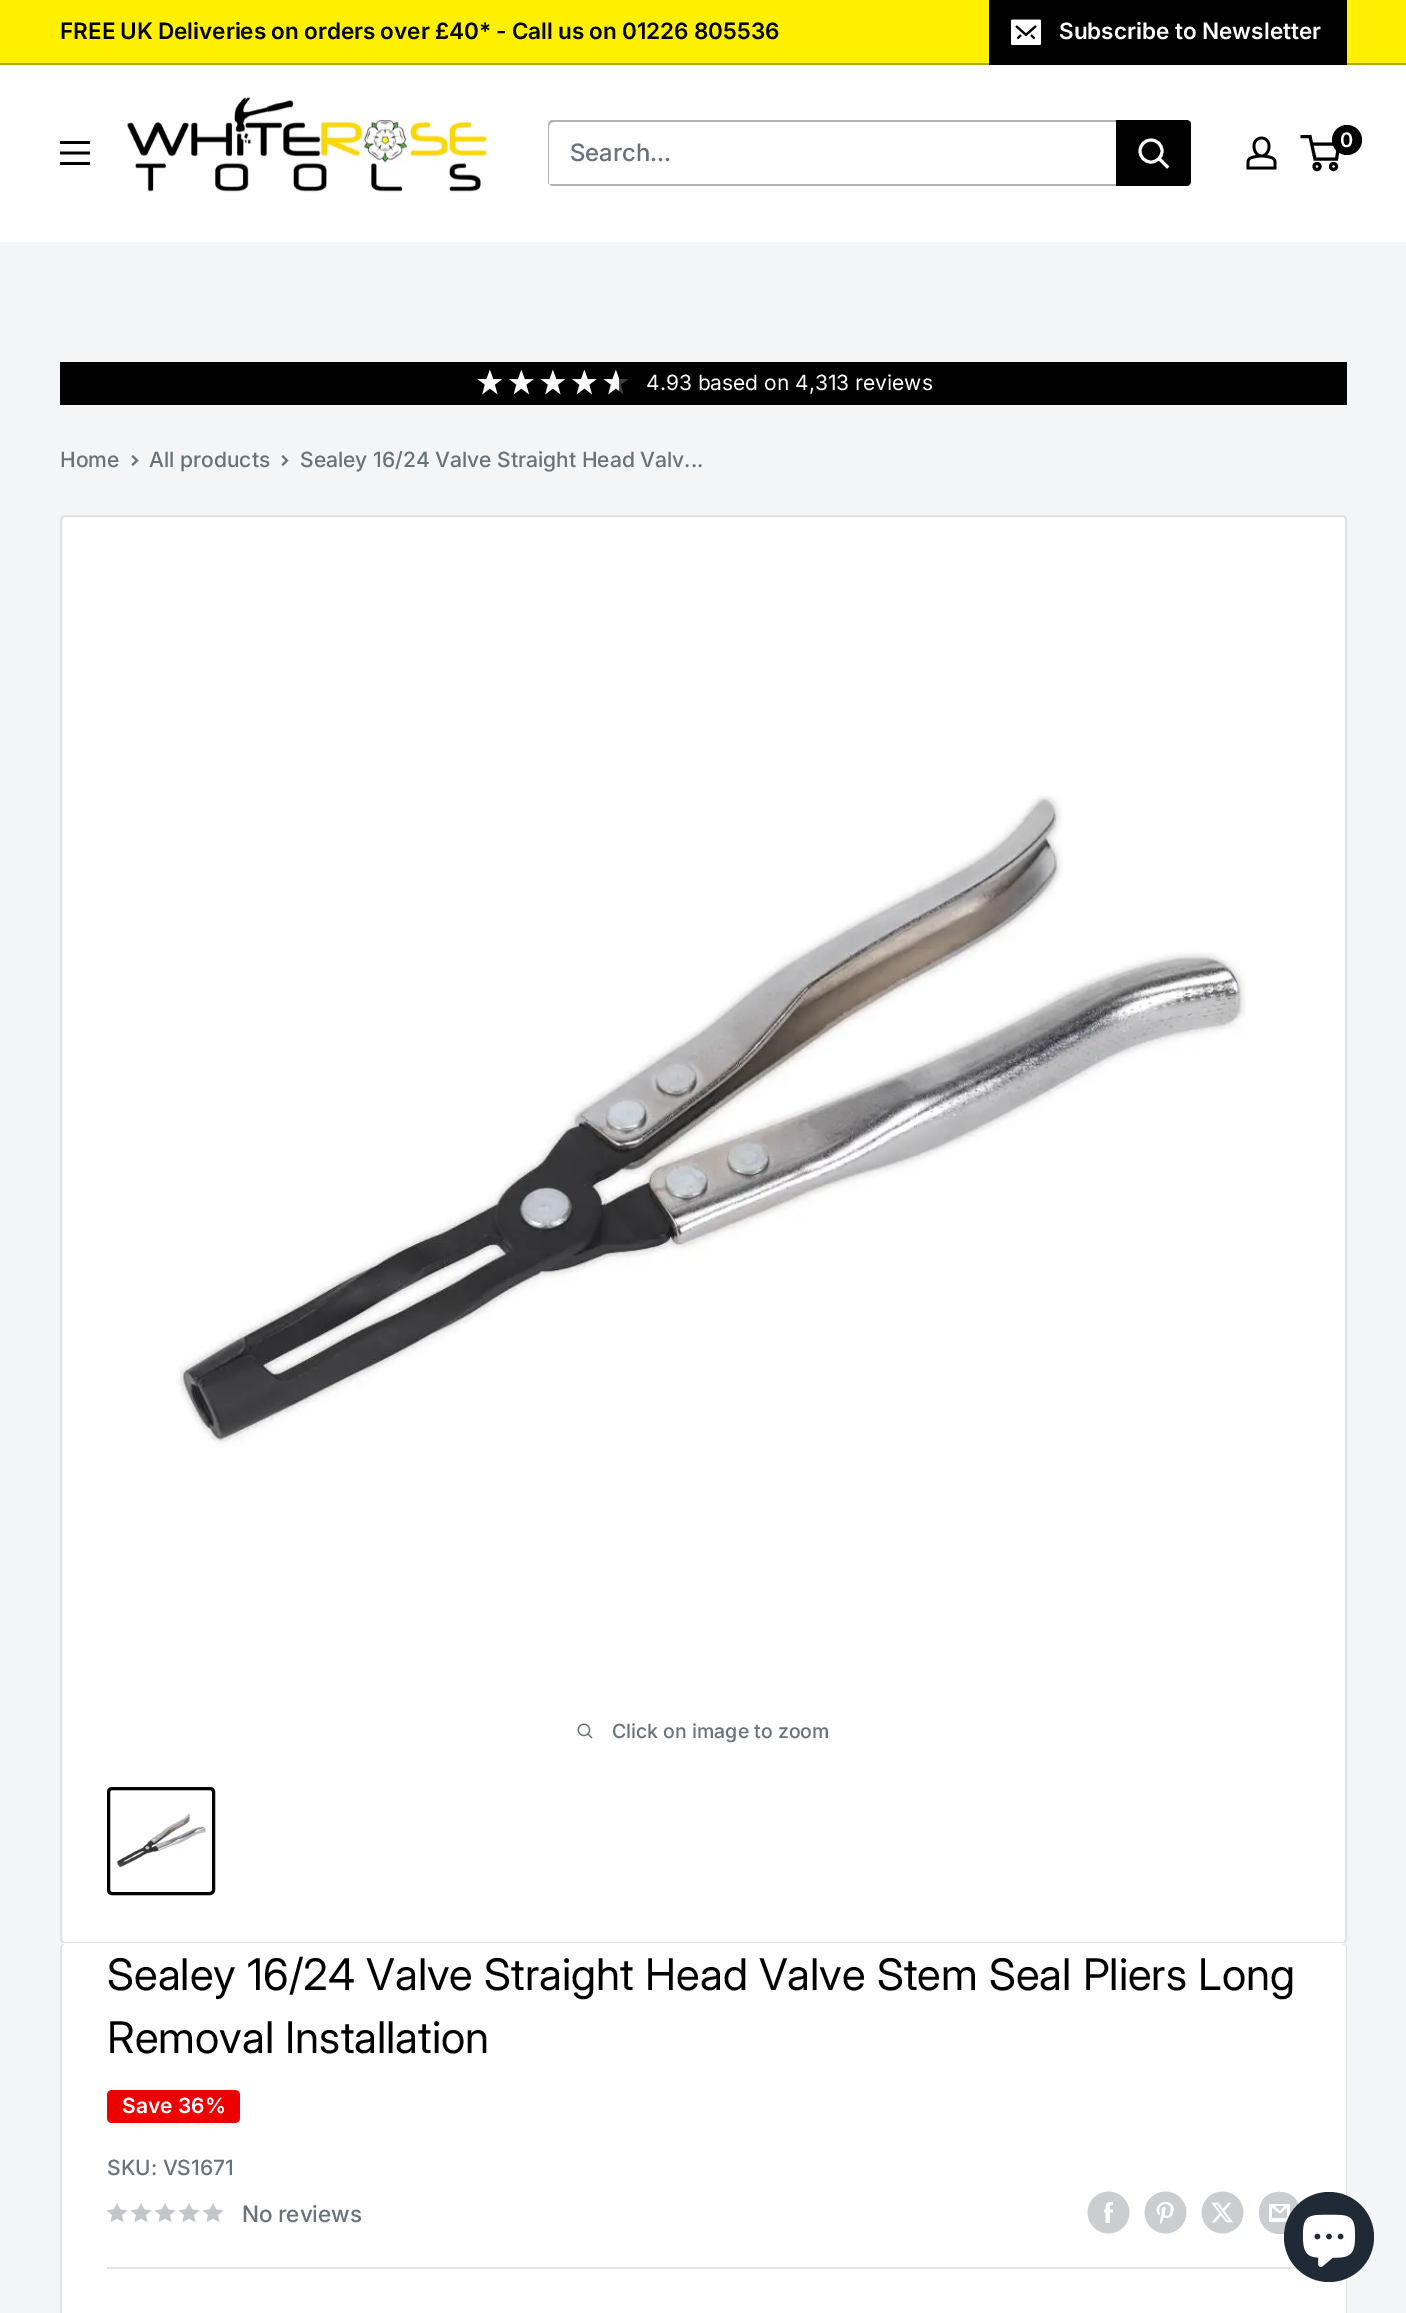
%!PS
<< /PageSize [1406 2313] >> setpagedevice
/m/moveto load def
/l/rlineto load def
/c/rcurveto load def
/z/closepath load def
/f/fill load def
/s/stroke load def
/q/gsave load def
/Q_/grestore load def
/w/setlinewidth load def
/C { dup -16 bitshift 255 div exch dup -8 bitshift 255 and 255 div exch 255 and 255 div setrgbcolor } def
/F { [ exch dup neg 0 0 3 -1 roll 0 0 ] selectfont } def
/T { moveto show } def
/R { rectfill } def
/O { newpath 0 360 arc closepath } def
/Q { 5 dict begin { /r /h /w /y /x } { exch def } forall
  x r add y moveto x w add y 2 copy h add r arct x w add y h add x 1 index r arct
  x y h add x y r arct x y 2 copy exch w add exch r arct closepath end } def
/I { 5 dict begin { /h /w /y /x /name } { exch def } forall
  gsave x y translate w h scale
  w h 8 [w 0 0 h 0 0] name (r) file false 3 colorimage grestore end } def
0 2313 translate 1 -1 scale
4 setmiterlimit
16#F3F5F6 C
0 0 1406 2313 R
16#FFF000 C
0 0 1406 63 R
16#B3A800 C
0 63 1406 2 R
/Inter-SemiBold 22.5 F
16#000000 C
60 39 m -.5 0 32 (FREE UK Deliveries on orders over £40* - Call us on 01226 805536) widthshow
989 0 358 65 R
(1.rgb) 1011 19 30 26 I
16#FFFFFF C
(Subscribe to Newsletter) 1059 39 T
0 65 1406 177 R
(2.rgb) 60 141 30 24 I
(3.rgb) 126 97 366 96 I
16#B3B3B3 C
549 184 m 1 1 2 2 4 2 c 633 0 l 3 0 5 -2 5 -5 c 0 -56 l 0 -1 -1 -3 -1 -4 c 0 2 l 0 57 l 0 2 -3 4 -5 4 c z f
554 122 m 634 0 l 1 0 2 0 3 1 c -1 -2 -3 -3 -5 -3 c -633 0 l -3 0 -5 2 -5 5 c 0 56 l 0 1 0 2 1 3 c 0 -48 l 0 -5 -2 -14 5 -14 c z f
/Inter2-Medium 24 F
16#677279 C
(Search...) 570 161 T
16#000000 C
1116 120 m 70 0 l 3 0 5 2 5 5 c 0 56 l 0 3 -2 5 -5 5 c -70 0 l z f
16#FFFFFF C
3 w
2 setlinecap
1167 166.5 m -7.5 -7.5 l s
0 setlinecap
1151 151 11 O s
(4.rgb) 1246 136 31 34 I
16#000000 C
1317 166.5 3 O s
1333.5 166.5 3 O s
1311.5 144 m 27.5 0 l -2.5 15 l -21.5 0 l -5 -22.5 l -9.5 0 l s
1347 140 15 O f
/Inter-SemiBold 20 F
16#FFFFFF C
(0) 1340 147 T
16#000000 C
60 362 1287 43 R
(5.rgb) 477 369 26 26 I
(6.rgb) 509 369 25 26 I
(5.rgb) 540 369 26 26 I
(6.rgb) 572 369 25 26 I
(7.rgb) 603 369 25 26 I
/Inter-Regular 21 F
16#FFFFFF C
(4.93 based on 4,313 reviews) 646 390 T
/Inter-Medium 21 F
16#677279 C
(Home) 60 467 T
2 w
2 setlinecap
133 456.5 m 4 4 l -4 4 l s
(All products) 149 467 T
283 456.5 m 4 4 l -4 4 l s
(Sealey 16/24 Valve Straight Head Valv...) 300 467 T
16#FFFFFF C
61 516 1285 1427 4 Q q f Q_
16#E1E3E4 C
0 setlinecap
s
(8.rgb) 176 795 1070 652 I
(9.rgb) 577 1723 16 16 I
/Inter-Medium 19.5 F
16#677279 C
(Click on image to zoom) 612 1738 T
16#000000 C
3 w
108.5 1788.5 105 105 3.5 Q s
(10.rgb) 116 1813 90 55 I
16#FFFFFF C
65 1943 m -3 0 -5 3 -5 5 c 0 -2 2 -4 4 -4 c 1278 0 l 3 0 5 2 5 4 c 0 -2 -2 -5 -5 -5 c z f
60 1944 1287 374 5 Q f
16#E1E3E4 C
64 1944 m 1278 0 l 3 0 5 2 5 4 c 0 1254 l 0 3 -2 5 -5 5 c -1278 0 l -2 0 -4 -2 -4 -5 c 0 -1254 l 0 -2 2 -4 4 -4 c z 64 1944 m 1278 0 l 2 0 4 2 4 4 c 0 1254 l 0 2 -2 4 -4 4 c -1278 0 l -1 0 -2 -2 -2 -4 c 0 -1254 l 0 -2 1 -4 2 -4 c z eofill
/Inter2-Regular 43.5 F
16#000000 C
(Sealey 16/24 Valve Straight Head Valve Stem Seal Pliers Long) 107 1990 T
(Removal Installation) 107 2053 T
16#EE0000 C
107 2090 133 33 5 Q f
/Inter-SemiBold 21 F
16#FFFFFF C
(Save 36%) 122 2113 T
/Inter-Medium 21 F
16#677279 C
(SKU: VS1671) 107 2175 T
(11.rgb) 106 2203 22 19 I
(11.rgb) 130 2203 22 19 I
(11.rgb) 154 2203 22 19 I
(11.rgb) 178 2203 22 19 I
(11.rgb) 202 2203 22 19 I
/Inter-Medium 22.5 F
242 2222 m -1 0 32 (No reviews) widthshow
(12.rgb) 1087 2191 43 43 I
(13.rgb) 1144 2191 43 43 I
(14.rgb) 1201 2191 43 43 I
16#CACED0 C
1280 2234 m -28 0 -28 -43 0 -42 c 27 0 27 42 0 42 c z 1275 2206 m 9 0 l -4 5 l z 1287 2208 m 0 10 l -15 0 l 0 -10 l 8 6 l z 1290 2204 m -21 0 l 0 18 l 21 0 l z f
16#E1E3E4 C
107 2267 1194 2 R
16#202A36 C
1329 2237 45 O f
(15.rgb) 1302 2214 54 53 I
showpage
